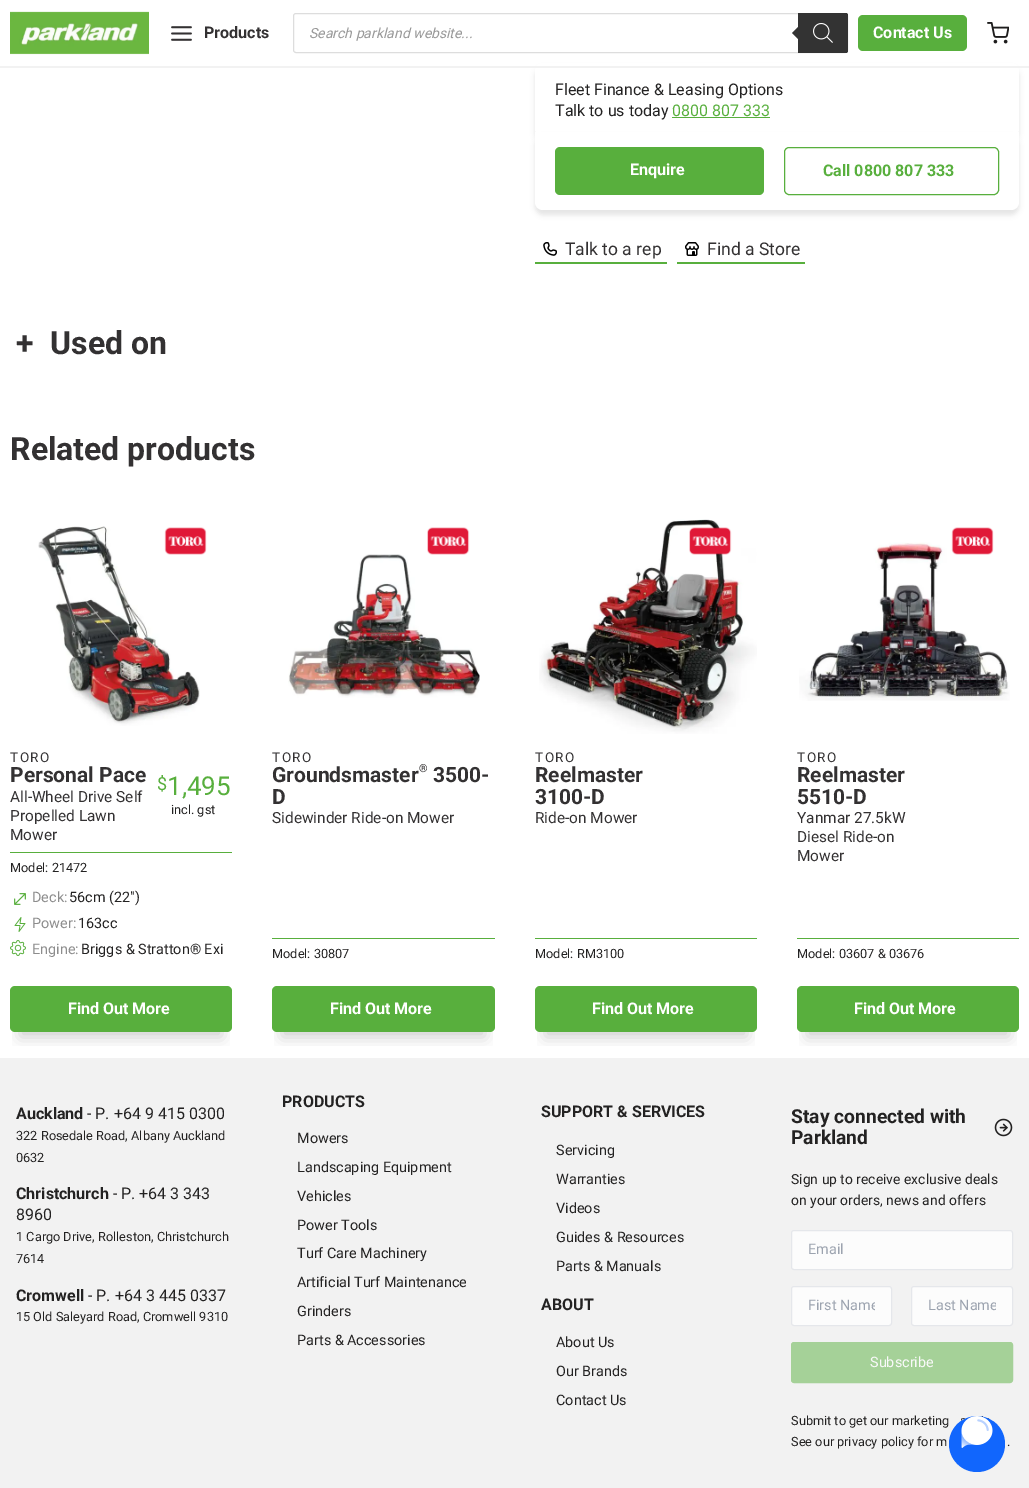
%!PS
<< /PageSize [1029 1488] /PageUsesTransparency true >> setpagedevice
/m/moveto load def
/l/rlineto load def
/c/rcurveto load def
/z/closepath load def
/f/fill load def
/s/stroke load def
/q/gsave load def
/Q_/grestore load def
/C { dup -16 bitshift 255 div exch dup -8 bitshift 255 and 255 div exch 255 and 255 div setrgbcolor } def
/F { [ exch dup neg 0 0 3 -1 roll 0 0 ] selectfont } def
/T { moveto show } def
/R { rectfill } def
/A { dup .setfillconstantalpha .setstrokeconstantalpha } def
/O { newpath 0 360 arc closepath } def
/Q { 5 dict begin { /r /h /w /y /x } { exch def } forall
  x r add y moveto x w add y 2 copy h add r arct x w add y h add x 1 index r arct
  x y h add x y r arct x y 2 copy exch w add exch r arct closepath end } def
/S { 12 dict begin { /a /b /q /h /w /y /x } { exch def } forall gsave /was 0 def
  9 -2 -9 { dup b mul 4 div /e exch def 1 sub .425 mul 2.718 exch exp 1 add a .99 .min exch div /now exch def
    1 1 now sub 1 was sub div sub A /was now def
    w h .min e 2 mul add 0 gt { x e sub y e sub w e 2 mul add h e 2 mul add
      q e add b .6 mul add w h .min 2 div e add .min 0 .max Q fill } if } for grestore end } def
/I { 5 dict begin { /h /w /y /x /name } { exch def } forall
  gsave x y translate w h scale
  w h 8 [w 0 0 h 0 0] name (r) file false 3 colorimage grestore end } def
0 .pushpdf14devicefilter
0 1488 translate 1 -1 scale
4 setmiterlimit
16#FFFFFF C
0 0 1029 1488 R
16#000000 C
535 68 484 74 8 2.5 .1 S
16#FFFFFF C
535 63 484 74 8 Q f
16#F2F2F2 C
0 66 1029 2 R
(1.rgb) 10 11 139 44 I
(2.rgb) 171 26 21 15 I
/Roboto-Bold 16 F
16#333132 C
(Products) 204 38 T
16#DDDDDD C
293.5 13.5 554 39 2.5 Q s
/Roboto-Italic 14 F
16#999999 C
(Search parkland website...) 309 38 T
16#333333 C
798 13 m 48 0 l 1 0 2 1 2 2 c 0 36 l 0 1 -1 2 -2 2 c -48 0 l z f
800 25 m 0 16 l -8 -8 l z f
(3.rgb) 813 23 20 20 I
16#58AF3D C
858 15 109 36 5 Q f
/Roboto-Bold 16 F
16#FFFFFF C
(Contact Us) 873 38 T
(4.rgb) 987 22 22 22 I
/Roboto-Regular 16 F
16#232222 C
(Fleet Finance & Leasing Options) 555 95 T
(Talk to us today) 555 116 T
16#58AF3D C
(0800 807 333) 672 116 T
672 117 98 1 R
16#000000 C
535 137 484 78 8 2.5 .1 S
16#FFFFFF C
535 132 m 484 0 l 0 70 l 0 4.5 -3.5 8 -8 8 c -468 0 l -4.5 0 -8 -3.5 -8 -8 c z f
16#58AF3D C
555 147 209 48 5 Q f
/Roboto-Bold 16 F
16#FFFFFF C
(Enquire) 630 175 T
16#58AF3D C
784.5 147.5 214 47 4.5 Q s
(Call 0800 807 333) 823 176 T
(5.rgb) 543 242 14 14 I
/Roboto-Regular 17.5 F
16#333132 C
(Talk to a rep) 565 255 T
16#58AF3D C
535 262 132 2 R
(6.rgb) 685 242 14 14 I
16#333132 C
(Find a Store) 707 255 T
16#58AF3D C
677 262 128 2 R
/Roboto-Bold 32 F
16#333132 C
(+) 16 354 T
(Used on) 50 354 T
(Related products) 10 460 T
16#F2F2F2 C
0 1058 1029 430 R
q
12 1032 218 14 rectclip
16#000000 C
20 538 202 499 0 7.5 .19 S
Q_
(7.rgb) 38 526 162 200 I
(8.rgb) 164 527 43 28 I
/Roboto-Regular 13.5 F
16#333132 C
10 762 m 1.5 0 (TORO) ashow
/Roboto-Bold 21 F
(Personal Pace) 10 782 T
/Roboto-Regular 15.4 F
(All-Wheel Drive Self) 10 802 T
(Propelled Lawn) 10 821 T
(Mower) 10 840 T
/Roboto-Regular 18 F
16#58AF3D C
($) 157 790 T
/Roboto-Regular 26 F
(1,495) 167 795 T
/Roboto-Regular 12.75 F
16#232222 C
(incl. gst) 171 814 T
16#58AF3D C
10 852 222 1 R
16#232222 C
(Model: 21472) 10 872 T
(9.rgb) 14 893 12 12 I
/Roboto-Regular 14.4 F
16#8D8D8D C
(Deck:) 32 902 T
16#232222 C
(56cm \(22"\)) 69 902 T
(10.rgb) 14 917 12 15 I
16#8D8D8D C
(Power:) 32 928 T
16#232222 C
(163cc) 78 928 T
(11.rgb) 10 940 16 16 I
16#8D8D8D C
(Engine:) 32 954 T
16#232222 C
(Briggs & Stratton® Exi) 81 954 T
q
10 513 222 519 4 Q clip newpath
16#58AF3D C
10 986 222 46 5 Q f
Q_
/Roboto-Bold 16 F
16#FFFFFF C
(Find Out More) 68 1014 T
q
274 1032 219 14 rectclip
16#000000 C
282 538 203 499 0 7.5 .19 S
Q_
(13.rgb) 288 554 192 144 I
(12.rgb) 427 527 43 28 I
/Roboto-Regular 13.5 F
16#333132 C
272 762 m 1.5 0 (TORO) ashow
/Roboto-Bold 21 F
(Groundsmaster) 272 782 T
/Roboto-Bold 11 F
(®) 419 772 T
/Roboto-Bold 21 F
(3500-) 433 782 T
(D) 272 804 T
/Roboto-Regular 15.4 F
(Sidewinder Ride-on Mower) 272 823 T
16#58AF3D C
272 938 223 1 R
/Roboto-Regular 12.75 F
16#232222 C
(Model: 30807) 272 958 T
q
272 513 223 519 4 Q clip newpath
16#58AF3D C
272 986 223 46 5 Q f
Q_
/Roboto-Bold 16 F
16#FFFFFF C
(Find Out More) 330 1014 T
q
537 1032 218 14 rectclip
16#000000 C
545 538 202 499 0 7.5 .19 S
Q_
(14.rgb) 539 519 218 215 I
(15.rgb) 689 527 43 28 I
/Roboto-Regular 13.5 F
16#333132 C
535 762 m 1.5 0 (TORO) ashow
/Roboto-Bold 21 F
(Reelmaster) 535 782 T
(3100-D) 535 804 T
/Roboto-Regular 15.4 F
(Ride-on Mower) 535 823 T
16#58AF3D C
535 938 222 1 R
/Roboto-Regular 12.75 F
16#232222 C
(Model: RM3100) 535 958 T
q
535 513 222 519 4 Q clip newpath
16#58AF3D C
535 986 222 46 5 Q f
Q_
/Roboto-Bold 16 F
16#FFFFFF C
(Find Out More) 592 1014 T
q
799 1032 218 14 rectclip
16#000000 C
807 538 202 499 0 7.5 .19 S
Q_
(17.rgb) 799 542 211 159 I
(16.rgb) 951 527 43 28 I
/Roboto-Regular 13.5 F
16#333132 C
797 762 m 1.5 0 (TORO) ashow
/Roboto-Bold 21 F
(Reelmaster) 797 782 T
(5510-D) 797 804 T
/Roboto-Regular 15.4 F
(Yanmar 27.5kW) 797 823 T
(Diesel Ride-on) 797 842 T
(Mower) 797 861 T
16#58AF3D C
797 938 222 1 R
/Roboto-Regular 12.75 F
16#232222 C
(Model: 03607 & 03676) 797 958 T
q
797 513 222 519 4 Q clip newpath
16#58AF3D C
797 986 222 46 5 Q f
Q_
/Roboto-Bold 16 F
16#FFFFFF C
(Find Out More) 854 1014 T
16#232222 C
(Auckland) 16 1119 T
/Roboto-Regular 16 F
(- P.) 87 1119 T
(+64 9 415 0300) 114 1119 T
/Roboto-Regular 12.75 F
(322 Rosedale Road, Albany Auckland) 16 1140 T
(0632) 16 1162 T
/Roboto-Bold 16 F
(Christchurch) 16 1199 T
/Roboto-Regular 16 F
(- P.) 113 1199 T
(+64 3 343) 139 1199 T
(8960) 16 1220 T
/Roboto-Regular 12.75 F
(1 Cargo Drive, Rolleston, Christchurch) 16 1241 T
(7614) 16 1263 T
/Roboto-Bold 16 F
(Cromwell) 16 1301 T
/Roboto-Regular 16 F
(- P.) 88 1301 T
(+64 3 445 0337) 115 1301 T
/Roboto-Regular 12.75 F
(15 Old Saleyard Road, Cromwell 9310) 16 1321 T
/Roboto-Bold 16 F
(PRODUCTS) 282 1107 T
/Roboto-Regular 14.4 F
(Mowers) 297 1143 T
(Landscaping Equipment) 297 1172 T
(Vehicles) 297 1201 T
(Power Tools) 297 1230 T
(Turf Care Machinery) 297 1258 T
(Artificial Turf Maintenance) 297 1287 T
(Grinders) 297 1316 T
(Parts & Accessories) 297 1345 T
/Roboto-Bold 16 F
(SUPPORT & SERVICES) 541 1117 T
/Roboto-Regular 14.4 F
(Servicing) 556 1155 T
(Warranties) 556 1184 T
(Videos) 556 1213 T
(Guides & Resources) 556 1242 T
(Parts & Manuals) 556 1271 T
/Roboto-Bold 16 F
(ABOUT) 541 1310 T
/Roboto-Regular 14.4 F
(About Us) 556 1347 T
(Our Brands) 556 1376 T
(Contact Us) 556 1405 T
/Roboto-Bold 19.25 F
(Stay connected with) 791 1123 T
(Parkland) 791 1144 T
(18.rgb) 994 1118 19 19 I
/Roboto-Regular 13.9 F
(Sign up to receive exclusive deals) 791 1184 T
(on your orders, news and offers) 791 1205 T
16#FCFCFC C
791.5 1230.5 221 39 2.5 Q q f Q_
16#E5E7EB C
s
/Roboto-Regular 14.4 F
16#9CA3AF C
(Email) 808 1254 T
16#FCFCFC C
791.5 1286.5 100 39 2.5 Q q f Q_
16#E5E7EB C
s
q
808 1297 67 17 rectclip
16#9CA3AF C
(First Name) 808 1310 T
Q_
16#FCFCFC C
911.5 1286.5 101 39 2.5 Q q f Q_
16#E5E7EB C
s
q
928 1297 68 17 rectclip
16#9CA3AF C
(Last Name) 928 1310 T
Q_
16#A5D198 C
791.5 1342.5 221 40 2.5 Q q f Q_
s
16#F9F9F9 C
(Subscribe) 870 1367 T
/Roboto-Regular 12.75 F
16#232222 C
(Submit to get our marketing) 791 1425 T
(See our) 791 1446 T
(privacy policy) 837 1446 T
(for m) 917 1446 T
(.) 1007 1446 T
16#1166FD C
977 1444 28 O f
(19.rgb) 961 1416 32 32 I
.poppdf14devicefilter showpage
